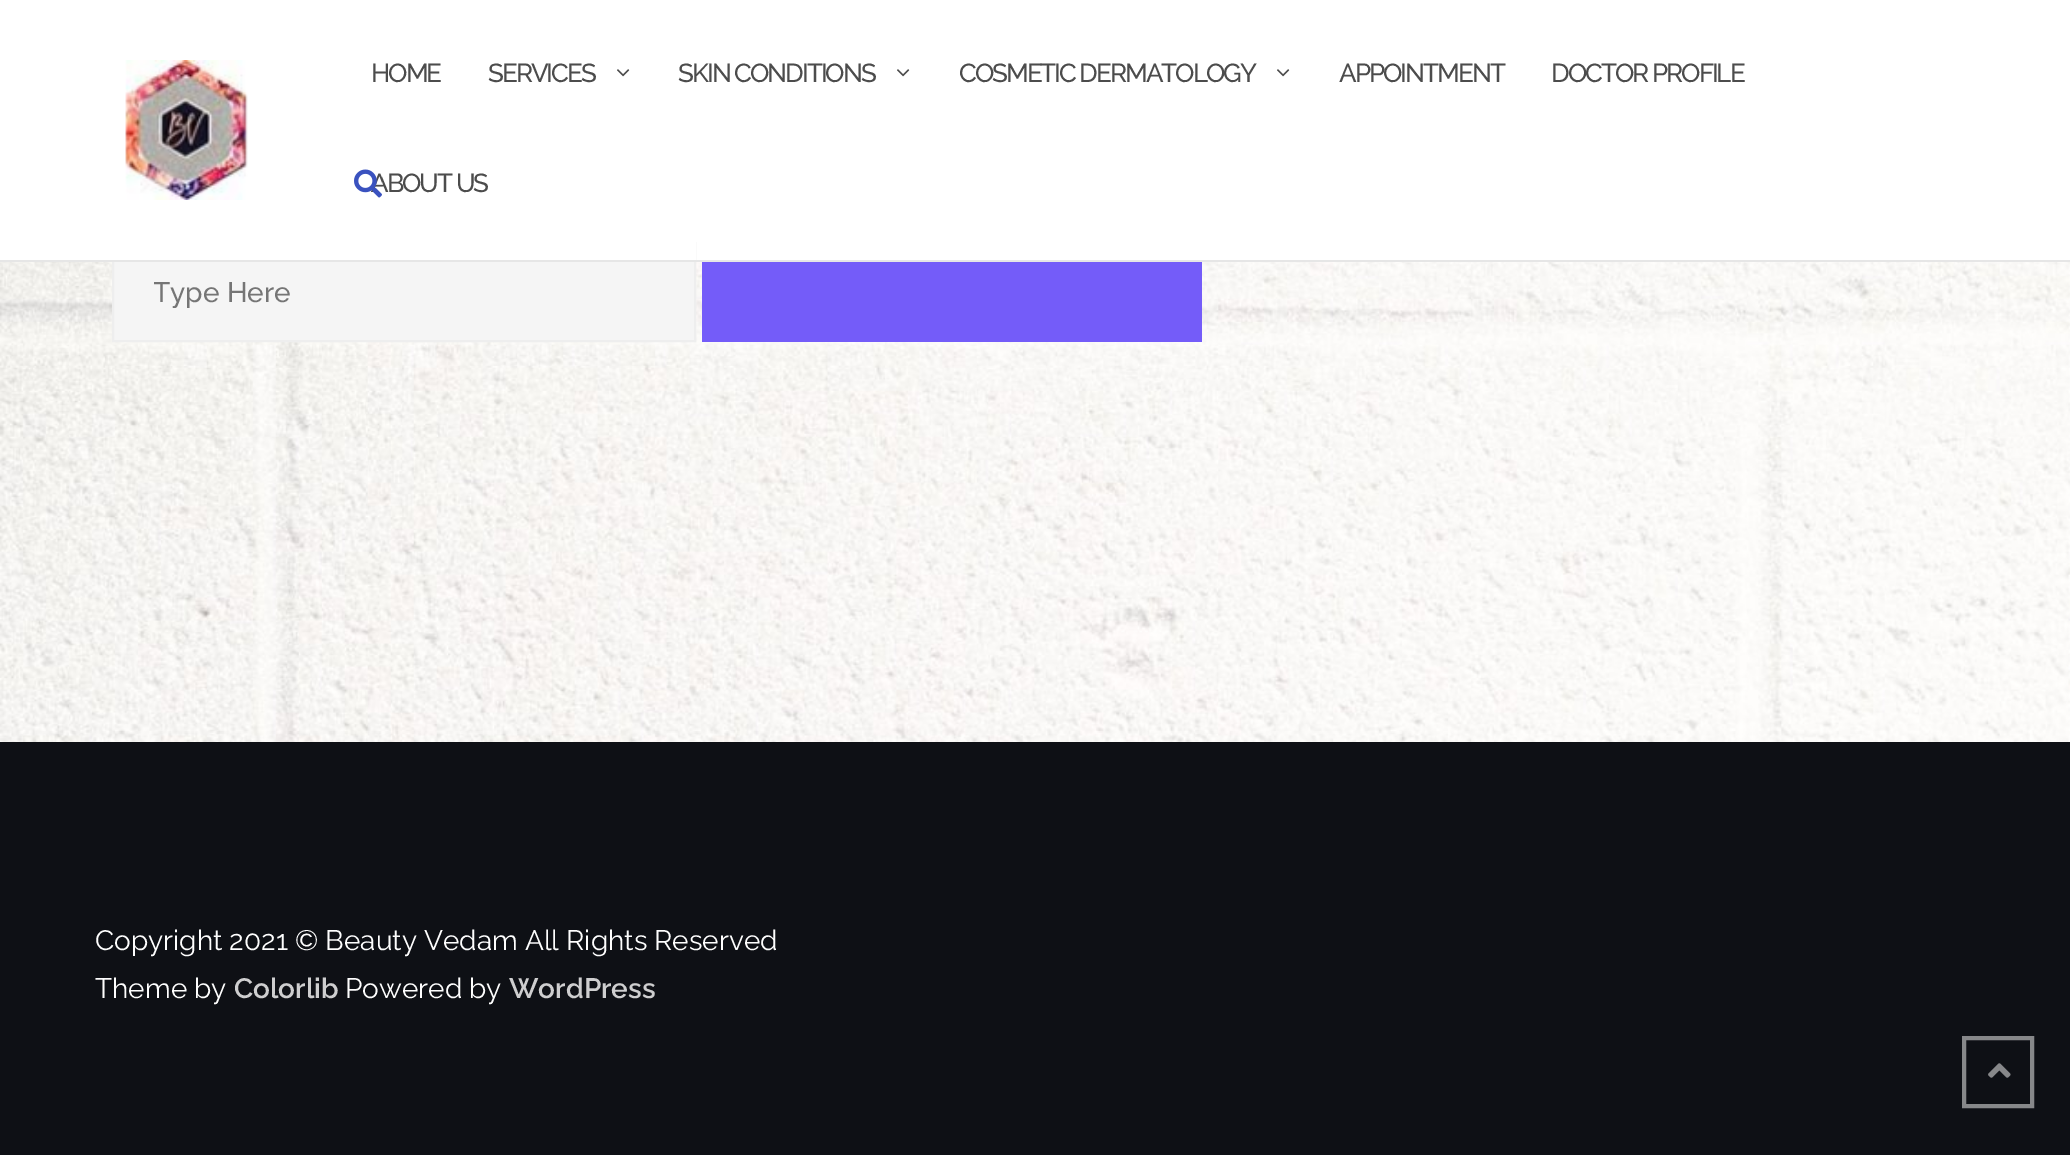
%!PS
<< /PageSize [2070 1155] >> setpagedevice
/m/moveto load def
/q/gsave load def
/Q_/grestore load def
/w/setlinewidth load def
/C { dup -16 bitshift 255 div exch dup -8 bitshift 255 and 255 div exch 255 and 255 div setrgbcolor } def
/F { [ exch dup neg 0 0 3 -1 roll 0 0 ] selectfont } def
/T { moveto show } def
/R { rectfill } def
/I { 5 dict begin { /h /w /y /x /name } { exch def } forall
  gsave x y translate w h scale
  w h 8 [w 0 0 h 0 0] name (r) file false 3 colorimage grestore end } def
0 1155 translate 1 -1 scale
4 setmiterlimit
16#FFFFFF C
0 0 2070 1155 R
(1.rgb) 0 262 2070 480 I
16#F5F5F5 C
114 262 580 78 R
16#EEEEEE C
2 w
113 243 582 98 rectstroke
16#FFFFFF C
112 242 584 18 R
16#E6E6E6 C
0 260 2070 2 R
(2.rgb) 125 60 123 140 I
/Raleway-Medium 26 F
16#4C4C4C C
371 192 m -2 0 (ABOUT US) ashow
(3.rgb) 354 169 28 29 I
371 82 m -2 0 (HOME) ashow
488 82 m -2 0 (SERVICES) ashow
(4.rgb) 617 69 13 8 I
678 82 m -2 0 (SKIN CONDITIONS) ashow
(4.rgb) 897 69 13 8 I
959 82 m -2 0 (COSMETIC DERMATOLOGY) ashow
(4.rgb) 1277 69 13 8 I
1339 82 m -2 0 (APPOINTMENT) ashow
1551 82 m -2 0 (DOCTOR PROFILE) ashow
q
154 276 534 32 rectclip
/Raleway-Medium 28 F
16#757575 C
(Type Here) 153 302 T
Q_
16#745CF9 C
702 262 500 80 R
16#0E1015 C
0 742 2070 413 R
/Raleway-Regular 28 F
16#FEFEFE C
(Copyright 2021 © Beauty Vedam All Rights Reserved) 95 950 T
(Theme by) 95 998 T
/Raleway-SemiBold 28 F
16#CECECF C
(Colorlib) 234 998 T
/Raleway-Regular 28 F
16#FEFEFE C
(Powered by) 345 998 T
/Raleway-SemiBold 28 F
16#CECECF C
(WordPress) 509 998 T
16#87888A C
4 w
1964 1038 68 68 rectstroke
(5.rgb) 1988 1063 23 15 I
showpage
